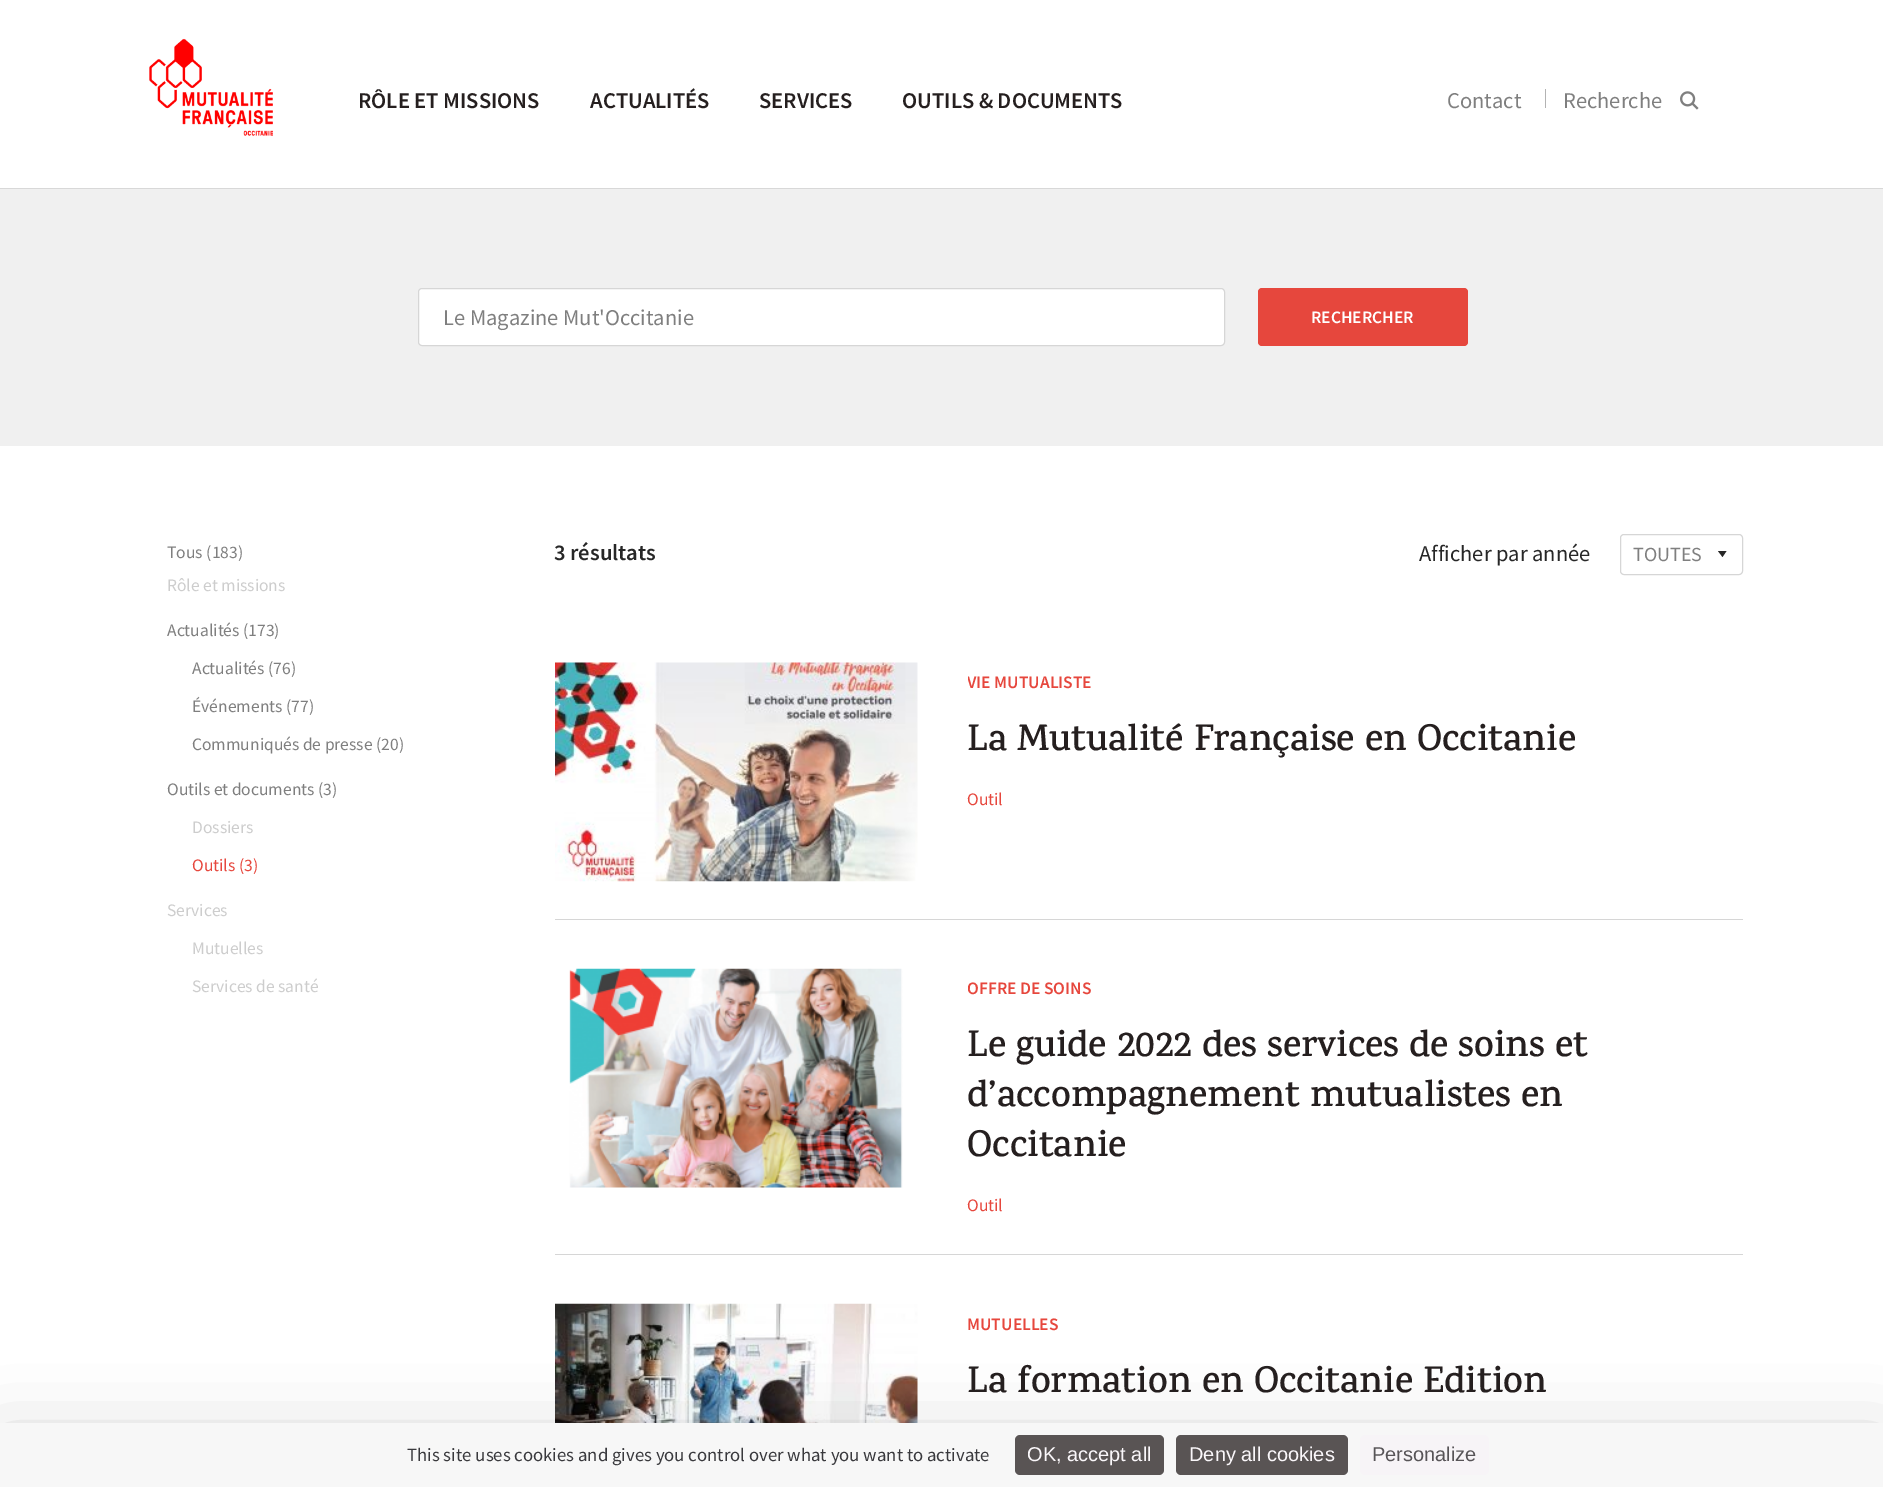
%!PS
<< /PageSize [1883 1487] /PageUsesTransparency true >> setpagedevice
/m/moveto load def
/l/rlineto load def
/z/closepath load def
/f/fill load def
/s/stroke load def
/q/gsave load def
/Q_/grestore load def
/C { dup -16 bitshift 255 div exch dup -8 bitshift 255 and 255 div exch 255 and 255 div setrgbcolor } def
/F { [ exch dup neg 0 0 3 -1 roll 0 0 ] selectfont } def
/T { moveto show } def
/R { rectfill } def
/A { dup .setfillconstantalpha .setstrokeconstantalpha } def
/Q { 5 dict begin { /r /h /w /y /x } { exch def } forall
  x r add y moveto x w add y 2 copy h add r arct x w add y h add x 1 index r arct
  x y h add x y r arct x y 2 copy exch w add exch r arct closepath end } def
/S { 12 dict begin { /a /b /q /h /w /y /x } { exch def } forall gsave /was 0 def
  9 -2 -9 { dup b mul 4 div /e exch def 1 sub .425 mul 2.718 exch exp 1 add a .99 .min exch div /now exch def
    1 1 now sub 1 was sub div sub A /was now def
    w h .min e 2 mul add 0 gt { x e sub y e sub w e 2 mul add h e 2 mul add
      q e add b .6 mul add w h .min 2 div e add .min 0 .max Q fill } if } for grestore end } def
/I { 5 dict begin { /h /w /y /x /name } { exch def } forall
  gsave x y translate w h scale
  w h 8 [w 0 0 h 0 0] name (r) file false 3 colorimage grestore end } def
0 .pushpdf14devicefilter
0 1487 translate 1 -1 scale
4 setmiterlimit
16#FFFFFF C
0 0 1883 1487 R
16#D8D8D8 C
0 188 m 0 1 l 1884 0 l 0 -188 l 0 187 l z f
(1.rgb) 149 38 124 98 I
/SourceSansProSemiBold-SemiBold 22.5 F
16#251F1F C
(RÔLE ET MISSIONS) 358 108 T
(ACTUALITÉS) 590 108 T
(SERVICES) 759 108 T
(OUTILS & DOCUMENTS) 902 108 T
/SourceSansPro-Regular 22.5 F
16#7F7F7F C
(Contact) 1447 108 T
16#B3B3B3 C
1545 89 1 19 R
16#7F7F7F C
(Recherche) 1563 108 T
(2.rgb) 1680 91 19 19 I
16#F0F0F0 C
0 189 1883 257 R
16#FFFFFF C
418.5 288.5 806 57 3.5 Q q f Q_
16#D6D6D6 C
s
16#7F7F7F C
(Le Magazine Mut'Occitanie) 443 325 T
16#E6473D C
1258 288 210 58 4 Q f
/SourceSansProSemiBold-SemiBold 17.5 F
16#FFFFFF C
(RECHERCHER) 1311 323 T
/SourceSansPro-Regular 17.5 F
16#7F7F7F C
(Tous \(183\)) 167 558 T
16#CDCDCD C
(Rôle et missions) 167 591 T
16#7F7F7F C
(Actualités \(173\)) 167 636 T
(Actualités \(76\)) 192 674 T
(Événements \(77\)) 192 712 T
(Communiqués de presse \(20\)) 192 750 T
(Outils et documents \(3\)) 167 795 T
16#CDCDCD C
(Dossiers) 192 833 T
16#E6473D C
(Outils \(3\)) 192 871 T
16#CDCDCD C
(Services) 167 916 T
(Mutuelles) 192 954 T
(Services de santé) 192 992 T
/SourceSansProSemiBold-SemiBold 22.5 F
16#272727 C
(3 résultats) 554 560 T
/SourceSansPro-Regular 22.5 F
(Afficher par année) 1419 561 T
16#D6D6D6 C
1620.5 534.5 122 40 3.5 Q s
/SourceSansPro-Regular 20 F
16#7F7F7F C
(TOUTES) 1633 561 T
16#272727 C
1718 551 m 8.5 0 l -4 6 l z eofill
(3.rgb) 555 662 363 220 I
q
968 663 638 37 rectclip
/SourceSansProSemiBold-SemiBold 17.5 F
16#E6473D C
(VIE MUTUALISTE) 967 688 T
Q_
/Karma-SemiBold 37.5 F
16#251F1F C
(La Mutualité Française en Occitanie) 967 750 T
/SourceSansPro-Regular 17.5 F
16#E6473D C
(Outil) 967 805 T
16#D6D6D6 C
555 919 1188 1 R
(4.rgb) 569 968 334 220 I
q
968 969 638 37 rectclip
/SourceSansProSemiBold-SemiBold 17.5 F
16#E6473D C
(OFFRE DE SOINS) 967 994 T
Q_
/Karma-SemiBold 37.5 F
16#251F1F C
(Le guide 2022 des services de soins et) 967 1056 T
(d’accompagnement mutualistes en) 967 1106 T
(Occitanie) 967 1156 T
/SourceSansPro-Regular 17.5 F
16#E6473D C
(Outil) 967 1211 T
16#D6D6D6 C
555 1254 1188 1 R
(5.rgb) 555 1303 363 120 I
/SourceSansProSemiBold-SemiBold 17.5 F
16#E6473D C
(MUTUELLES) 967 1330 T
/Karma-SemiBold 37.5 F
16#251F1F C
(La formation en Occitanie Edition) 967 1392 T
16#000000 C
0 1448 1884 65 0 37.5 .25 S
16#F7F7F7 C
0 1423 1883 64 R
/SourceSansPro-Regular 18.75 F
16#39393D C
(This site uses cookies and gives you control over what you want to activate) 407 1461 T
16#595454 C
1015 1435 149 40 5 Q f
/LiberationSans-Regular 20 F
16#FAF7FA C
(OK, accept all) 1027 1461 T
16#595454 C
1176 1435 172 40 5 Q f
16#FAF7FA C
(Deny all cookies) 1189 1461 T
16#F7F4F7 C
1360 1435 129 40 5 Q f
16#575457 C
(Personalize) 1372 1461 T
.poppdf14devicefilter showpage
